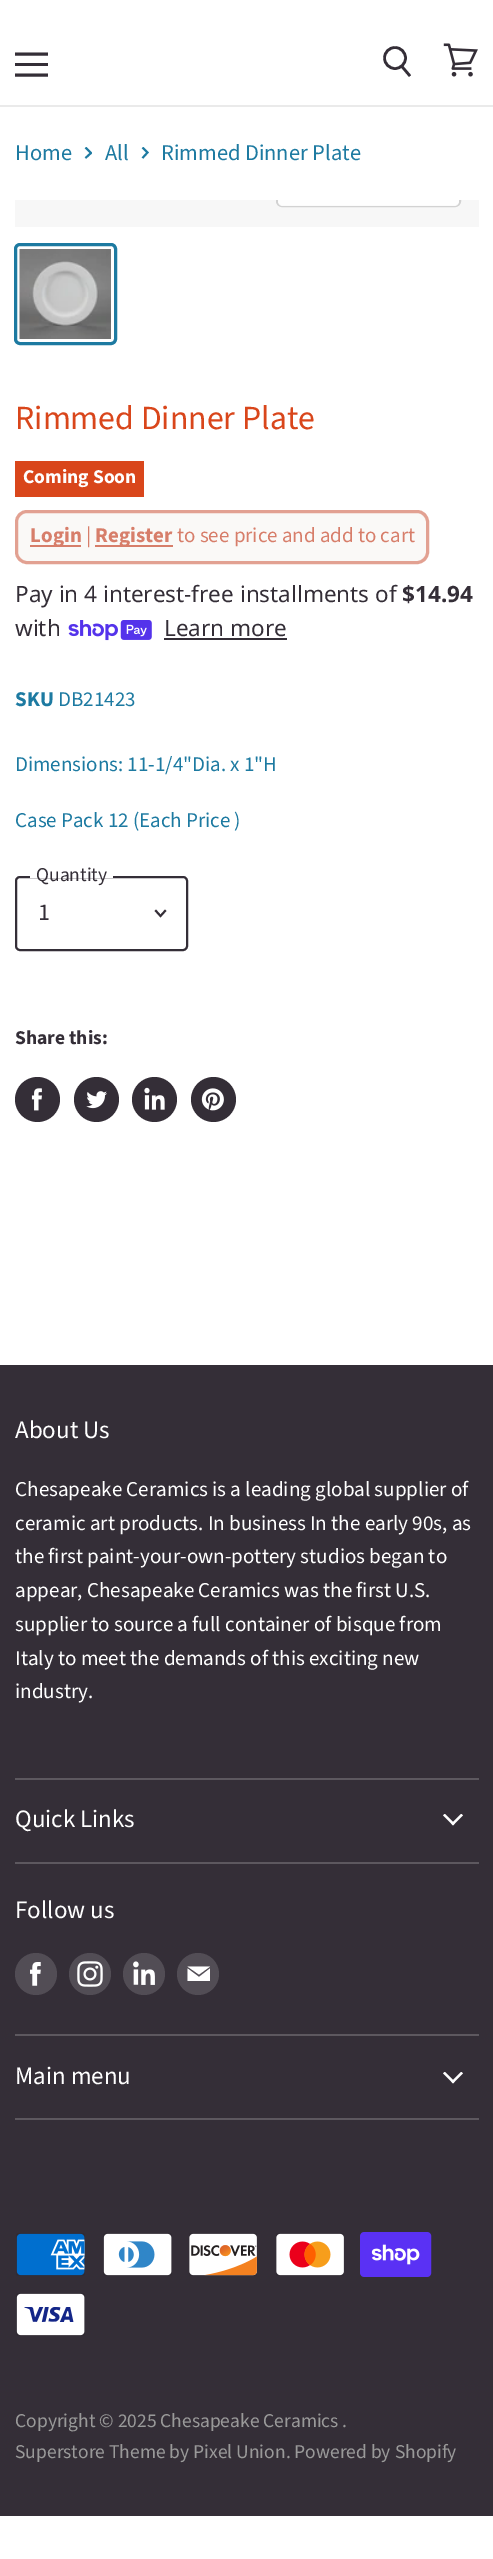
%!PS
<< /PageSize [493 2559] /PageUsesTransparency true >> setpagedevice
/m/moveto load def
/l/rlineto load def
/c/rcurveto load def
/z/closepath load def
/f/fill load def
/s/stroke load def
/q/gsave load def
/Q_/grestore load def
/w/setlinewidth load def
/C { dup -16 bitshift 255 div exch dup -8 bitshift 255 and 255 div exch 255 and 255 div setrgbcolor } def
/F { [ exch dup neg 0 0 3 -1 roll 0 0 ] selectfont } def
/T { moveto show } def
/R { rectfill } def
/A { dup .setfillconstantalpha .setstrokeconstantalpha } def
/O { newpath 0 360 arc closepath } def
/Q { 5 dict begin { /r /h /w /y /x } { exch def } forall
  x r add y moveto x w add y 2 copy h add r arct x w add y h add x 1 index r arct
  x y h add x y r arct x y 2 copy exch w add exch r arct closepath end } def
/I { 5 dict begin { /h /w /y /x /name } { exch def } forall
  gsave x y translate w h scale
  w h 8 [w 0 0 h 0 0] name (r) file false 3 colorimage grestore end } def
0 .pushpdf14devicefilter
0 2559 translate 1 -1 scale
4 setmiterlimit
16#FFFFFF C
0 0 493 2559 R
16#EAEAEA C
0 105 493 2 R
16#342E37 C
3 w
2 setlinecap
1 setlinejoin
46.5 54 m -30 0 l s
15 63 33 3 R
46.5 75 m -30 0 l s
2.6 w
0 setlinecap
0 setlinejoin
410 76 m -8.5 -10 l s
395 58 10.5 O s
(1.rgb) 443 43 35 34 I
/SourceSansPro-Regular 22.5 F
16#1D7AA1 C
(Home) 15 160 T
q
84.5 159.5 m 0 -12 l 7.5 0 l 0 12 l z clip newpath
1.9 w
85.5 158 m 5.5 -5 l -5.5 -5.5 l s
Q_
(All) 105 160 T
q
141 159.5 m 0 -12 l 7.5 0 l 0 12 l z clip newpath
1.9 w
142.5 158 m 5 -5.5 l -5 -5 l s
Q_
(Rimmed Dinner Plate) 161 160 T
16#F7F7F7 C
15 200 464 27 R
q
15 200 464 27 rectclip
16#D2D2D2 C
2 w
277 165 183 41 5 Q s
Q_
0.9 A
16#FFFFFF C
278 200 m 181 0 l 0 1 l 0 3 -2 5 -5 5 c -171 0 l -3 0 -5 -2 -5 -5 c z f
1 A
16#1D7AA1 C
3 w
15.5 244.5 100 99 4.5 Q s
(2.rgb) 19 249 92 90 I
/SourceSansPro-Regular 33.75 F
16#D9461B C
(Rimmed Dinner Plate) 15 429 T
15 461 129 36 R
/SourceSansPro-Bold 19.5 F
16#FFFFFF C
(Coming Soon) 23 483 T
16#FAF9F7 C
16.5 511.5 411 51 10.5 Q q f Q_
16#E2A192 C
s
16#D77E6A C
30 545 51 2 R
/SourceSansPro-Bold 21 F
(Login) 30 542 T
/SourceSansPro-Regular 21 F
(|) 86 542 T
95 545 78 2 R
/SourceSansPro-Bold 21 F
(Register) 95 542 T
/SourceSansPro-Regular 21 F
(to see price and add to cart) 177 542 T
/NotoSans-Regular 22.5 F
16#342E37 C
(Pay in 4 interest-free installments of) 15 602 T
/NotoSans-Bold 22.5 F
($14.94) 402 602 T
/NotoSans-Regular 22.5 F
(with) 15 636 T
(3.rgb) 68 620 84 21 I
(Learn more) 164 636 T
164 638 123 2 R
/SourceSansPro-Bold 21 F
16#1D7AA1 C
(SKU) 15 706 T
/SourceSansPro-Regular 21 F
(DB21423) 58 706 T
(Dimensions: 11-1/4"Dia. x 1"H) 15 771 T
(Case Pack 12 \(Each Price \)) 15 827 T
16#342E37 C
2 w
16 877 171 73 4 Q s
16#FFFFFF C
30 876 83 2 R
/SourceSansPro-Regular 19.5 F
16#342E37 C
(Quantity) 36 881 T
/SourceSansPro-Regular 24 F
(1) 38 920 T
1.9 w
2 setlinecap
160.5 916 m 4.5 -5 l 160.5 916 m -4.5 -5 l s
/SourceSansPro-Bold 19.5 F
(Share this:) 15 1044 T
37.5 1099.5 22.5 O f
(4.rgb) 31 1088 11 23 I
96.5 1099.5 22.5 O f
(5.rgb) 86 1091 21 18 I
154.5 1099.5 22.5 O f
(6.rgb) 144 1087 21 23 I
213.5 1099.5 22.5 O f
(7.rgb) 201 1088 23 23 I
0 1365 493 1151 R
16#5D585F C
15 1778 464 2 R
/SourceSansPro-Regular 25 F
16#FFFFFF C
(About Us) 15 1438 T
/SourceSansPro-Regular 21.1 F
(Chesapeake Ceramics is a leading global supplier of) 15 1496 T
(ceramic art products. In business In the early 90s, as) 15 1530 T
(the first paint-your-own-pottery studios began to) 15 1563 T
(appear, Chesapeake Ceramics was the first U.S.) 15 1597 T
(supplier to source a full container of bisque from) 15 1631 T
(Italy to meet the demands of this exciting new) 15 1665 T
(industry.) 15 1698 T
16#5D585F C
15 1862 464 2 R
/SourceSansPro-Regular 25 F
16#FFFFFF C
(Quick Links) 15 1827 T
(8.rgb) 443 1814 20 12 I
16#5D585F C
15 2034 464 2 R
16#FFFFFF C
(Follow us) 15 1918 T
16#524D55 C
36 1974 21 O f
(9.rgb) 30 1962 11 24 I
90 1974 21 O f
(10.rgb) 77 1961 26 26 I
144 1974 21 O f
(11.rgb) 133 1961 22 24 I
198 1974 21 O f
16#FFFFFF C
210 1966.5 m -22.5 0 l 11.5 8 l z 199 1977 m -11.5 -8.5 l 0 12.5 l 22.5 0 l 0 -12.5 l z eofill
16#5D585F C
15 2118 464 2 R
16#FFFFFF C
(Main menu) 15 2084 T
(8.rgb) 443 2072 20 12 I
(12.rgb) 16 2233 69 43 I
(13.rgb) 103 2233 69 43 I
(14.rgb) 189 2233 68 43 I
(15.rgb) 276 2233 68 43 I
(16.rgb) 360 2232 72 45 I
(17.rgb) 16 2293 69 43 I
/SourceSansPro-Regular 19.5 F
16#999999 C
(Copyright © 2025 Chesapeake Ceramics .) 15 2427 T
(Superstore Theme by Pixel Union. Powered by Shopify) 15 2458 T
.poppdf14devicefilter showpage
